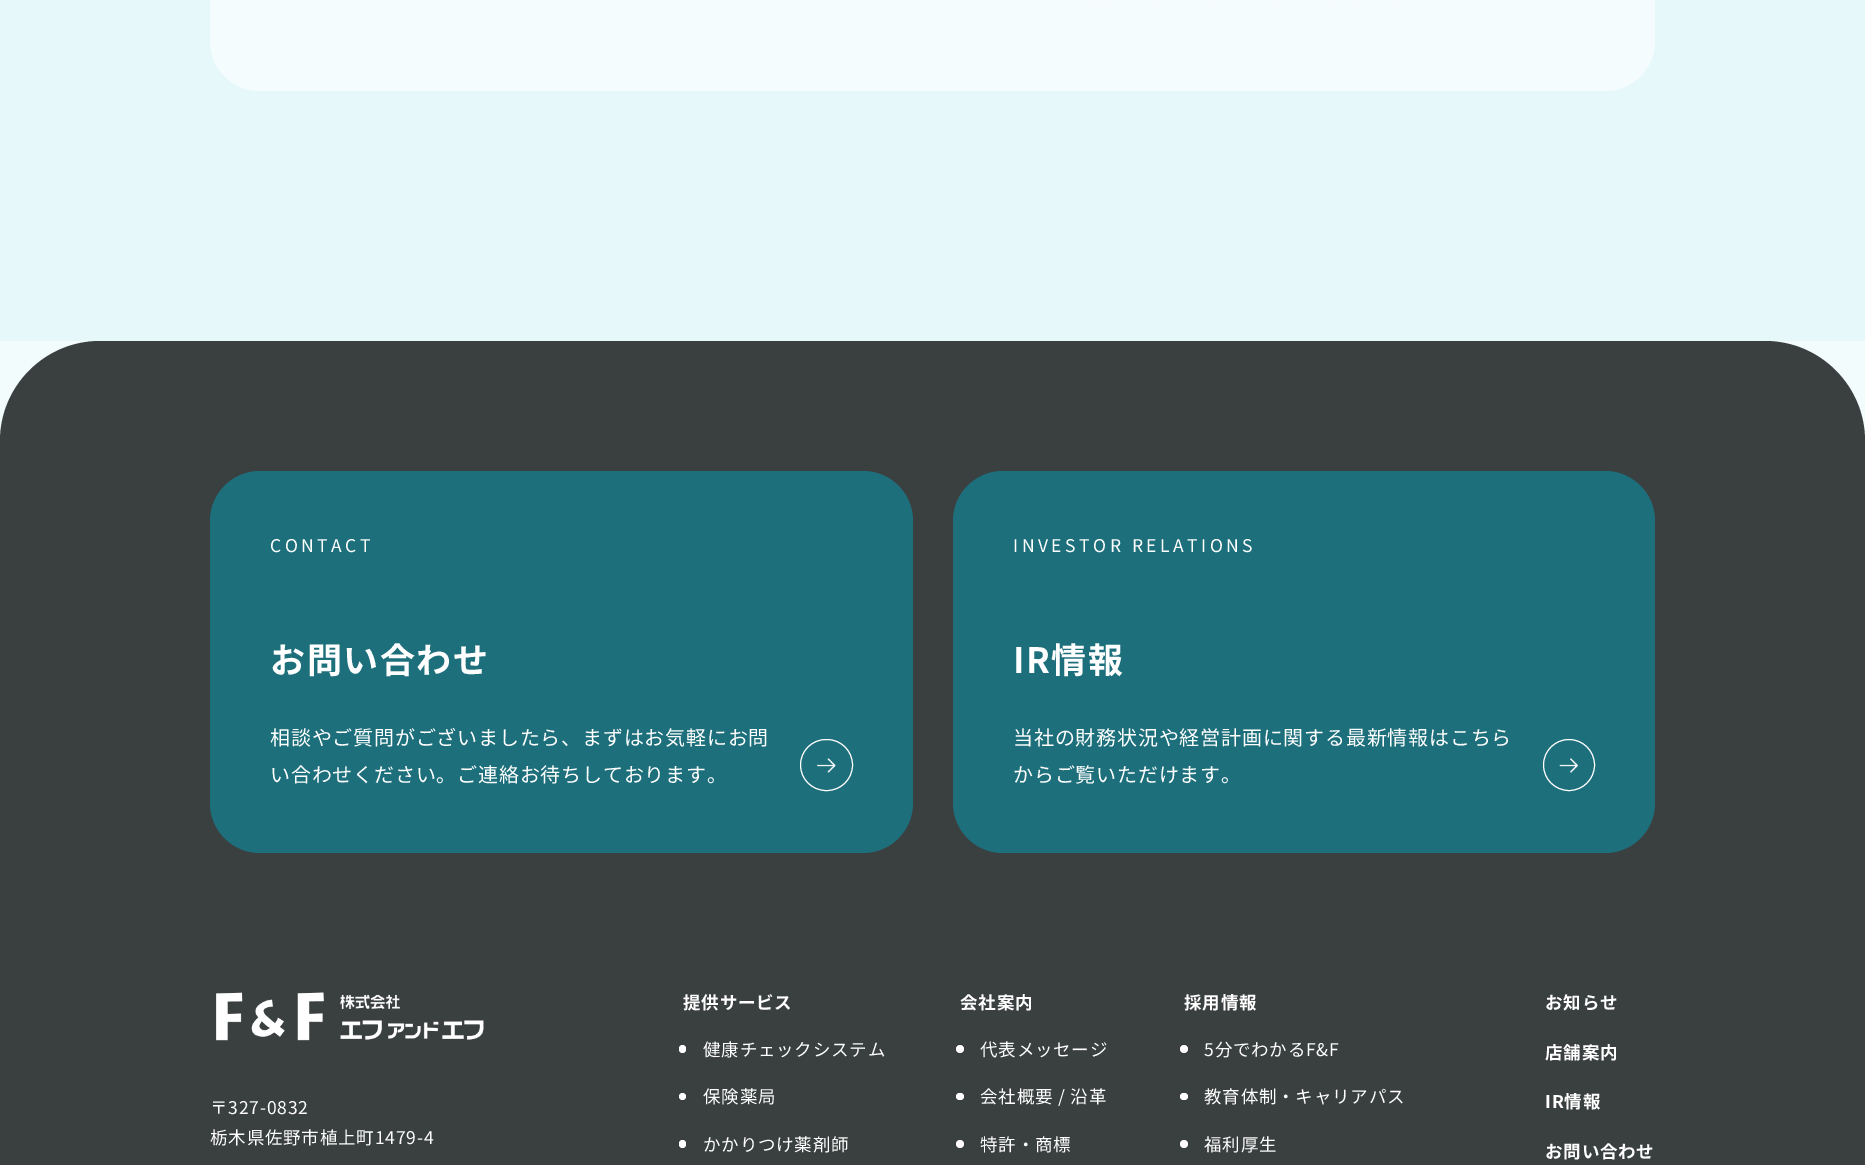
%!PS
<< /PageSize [1865 1165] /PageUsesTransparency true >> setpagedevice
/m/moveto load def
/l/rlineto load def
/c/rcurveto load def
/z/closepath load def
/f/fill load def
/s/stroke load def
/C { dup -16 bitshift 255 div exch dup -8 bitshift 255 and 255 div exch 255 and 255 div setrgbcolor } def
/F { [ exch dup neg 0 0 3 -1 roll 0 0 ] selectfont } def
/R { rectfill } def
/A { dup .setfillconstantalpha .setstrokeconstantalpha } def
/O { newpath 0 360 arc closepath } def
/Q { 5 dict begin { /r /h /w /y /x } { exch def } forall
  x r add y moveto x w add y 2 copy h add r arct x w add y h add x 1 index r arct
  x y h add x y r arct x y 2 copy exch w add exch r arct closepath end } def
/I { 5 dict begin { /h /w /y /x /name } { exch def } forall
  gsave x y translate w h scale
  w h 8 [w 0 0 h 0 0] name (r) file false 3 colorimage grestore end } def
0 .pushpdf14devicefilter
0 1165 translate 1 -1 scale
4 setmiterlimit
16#F3FCFD C
0 0 1865 1165 R
(1.rgb) 0 0 1865 341 I
0.6 A
16#FFFFFF C
210 -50 1445 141 50 Q f
1 A
16#3A3F3F C
100 341 m 1665 0 l 55 0 100 45 100 100 c 0 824 l -1865 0 l 0 -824 l 0 -55 45 -100 100 -100 c z f
16#1D6F7C C
210 471 703 382 50 Q f
/NotoSansJP-Regular 17.5 F
16#FFFFFF C
270 552 m 3.5 0 (CONTACT) ashow
/NotoSansJP-Bold 35 F
270 673 m 1.5 0 (お問い合わせ) ashow
/NotoSansJP-Regular 20 F
270 745 m .8 0 (相談やご質問がございましたら、まずはお気軽にお問) ashow
270 782 m .8 0 (い合わせください。ご連絡お待ちしております。) ashow
800.5 739.5 52 51 25.5 Q s
(2.rgb) 817 758 19 15 I
16#1D6F7C C
953 471 702 382 50 Q f
/NotoSansJP-Regular 17.5 F
16#FFFFFF C
1013 552 m 3.5 0 (INVESTOR RELATIONS) ashow
/NotoSansJP-Bold 35 F
1013 673 m 1.5 0 (IR情報) ashow
/NotoSansJP-Regular 20 F
1013 745 m .8 0 (当社の財務状況や経営計画に関する最新情報はこちら) ashow
1013 782 m .8 0 (からご覧いただけます。) ashow
1569 765 25.5 O s
(3.rgb) 1559 758 19 15 I
(4.rgb) 216 992 268 49 I
/NotoSansJP-Regular 17.5 F
210 1114 m .8 0 (〒327-0832) ashow
210 1144 m .8 0 (栃木県佐野市植上町1479-4) ashow
/NotoSansJP-Bold 17.5 F
683 1009 m .8 0 (提供サービス) ashow
679 1045 7 8 3.5 Q f
/NotoSansJP-Regular 17.5 F
703 1056 m .8 0 (健康チェックシステム) ashow
682.5 1096.5 3.5 O f
703 1103 m .8 0 (保険薬局) ashow
679 1140 7 8 3.5 Q f
703 1151 m .8 0 (かかりつけ薬剤師) ashow
/NotoSansJP-Bold 17.5 F
960 1009 m .8 0 (会社案内) ashow
960 1049 4 O f
/NotoSansJP-Regular 17.5 F
980 1056 m .8 0 (代表メッセージ) ashow
956 1093 8 7 3.5 Q f
980 1103 m .8 0 (会社概要 / 沿革) ashow
960 1144 4 O f
980 1151 m .8 0 (特許・商標) ashow
/NotoSansJP-Bold 17.5 F
1184 1009 m .8 0 (採用情報) ashow
1184 1049 4 O f
/NotoSansJP-Regular 17.5 F
1204 1056 m .8 0 (5分でわかるF&F) ashow
1180 1093 8 7 3.5 Q f
1204 1103 m .8 0 (教育体制・キャリアパス) ashow
1184 1144 4 O f
1204 1151 m .8 0 (福利厚生) ashow
/NotoSansJP-Bold 17.5 F
1545 1009 m .8 0 (お知らせ) ashow
1545 1059 m .8 0 (店舗案内) ashow
1545 1108 m .8 0 (IR情報) ashow
1545 1158 m .8 0 (お問い合わせ) ashow
.poppdf14devicefilter showpage
